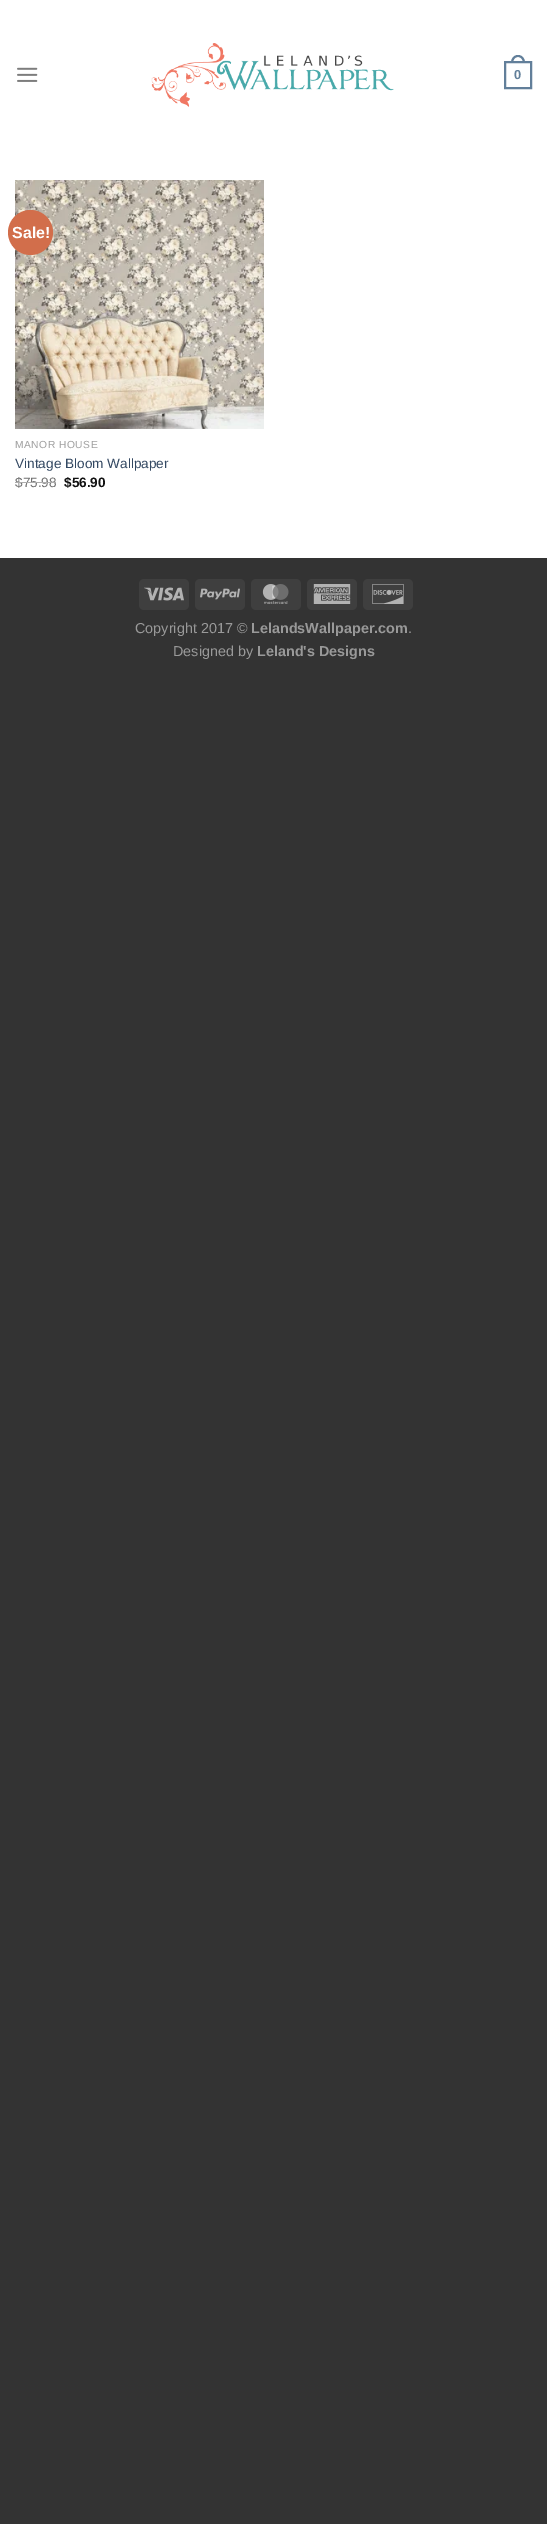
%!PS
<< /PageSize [547 2524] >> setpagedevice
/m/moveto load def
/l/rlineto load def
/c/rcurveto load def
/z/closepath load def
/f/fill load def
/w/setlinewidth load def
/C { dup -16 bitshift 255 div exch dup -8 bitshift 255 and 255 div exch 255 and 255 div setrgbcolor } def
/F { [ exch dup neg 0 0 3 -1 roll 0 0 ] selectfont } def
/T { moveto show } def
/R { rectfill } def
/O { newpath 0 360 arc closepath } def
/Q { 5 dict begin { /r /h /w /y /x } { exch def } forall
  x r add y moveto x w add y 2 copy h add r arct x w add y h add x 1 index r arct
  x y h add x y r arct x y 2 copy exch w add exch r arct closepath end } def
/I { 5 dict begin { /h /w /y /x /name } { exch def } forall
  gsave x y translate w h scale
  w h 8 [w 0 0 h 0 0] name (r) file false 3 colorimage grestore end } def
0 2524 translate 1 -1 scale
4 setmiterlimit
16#333333 C
0 0 547 2524 R
16#FFFFFF C
0 0 547 558 R
(1.rgb) 17 67 21 15 I
(2.rgb) 151 43 243 64 I
16#627F9A C
2 w
505 62 26 26 rectstroke
518 55 m 4.5 0 7 4 7 8 c -14 0 l 0 -4 2.5 -8 7 -8 c z 518 57 m 3.5 0 5 3 5 6 c -10 0 l 0 -3 1.5 -6 5 -6 c z eofill
/LiberationSans-Bold 13 F
(0) 514 79 T
(3.rgb) 15 180 249 249 I
16#D26E4B C
30.5 232.5 22.5 O f
/LiberationSans-Bold 16 F
16#FFFFFF C
(Sale!) 12 238 T
/LiberationSans-Regular 10.25 F
16#A0A0A0 C
15 448 m .5 0 (MANOR HOUSE) ashow
/LiberationSans-Regular 13.6 F
16#334862 C
(Vintage Bloom Wallpaper) 15 468 T
16#707070 C
($75.98) 15 487 T
16#ADADAD C
15 482 41 1 R
/LiberationSans-Bold 13.6 F
16#111111 C
($56.90) 64 487 T
16#3F3F3F C
139 579 50 31 5 Q f
(4.rgb) 144 587 40 14 I
195 579 50 31 5 Q f
(5.rgb) 200 588 40 12 I
251 579 50 31 5 Q f
(6.rgb) 262 584 27 20 I
307 579 50 31 5 Q f
(7.rgb) 313 584 38 20 I
363 579 50 31 5 Q f
(8.rgb) 372 584 32 20 I
/LiberationSans-Regular 14.4 F
16#999999 C
(Copyright 2017 ©) 135 633 T
/LiberationSans-Bold 14.4 F
(LelandsWallpaper.com) 251 633 T
/LiberationSans-Regular 14.4 F
(.) 408 633 T
(Designed by) 173 656 T
/LiberationSans-Bold 14.4 F
(Leland's Designs) 257 656 T
showpage
